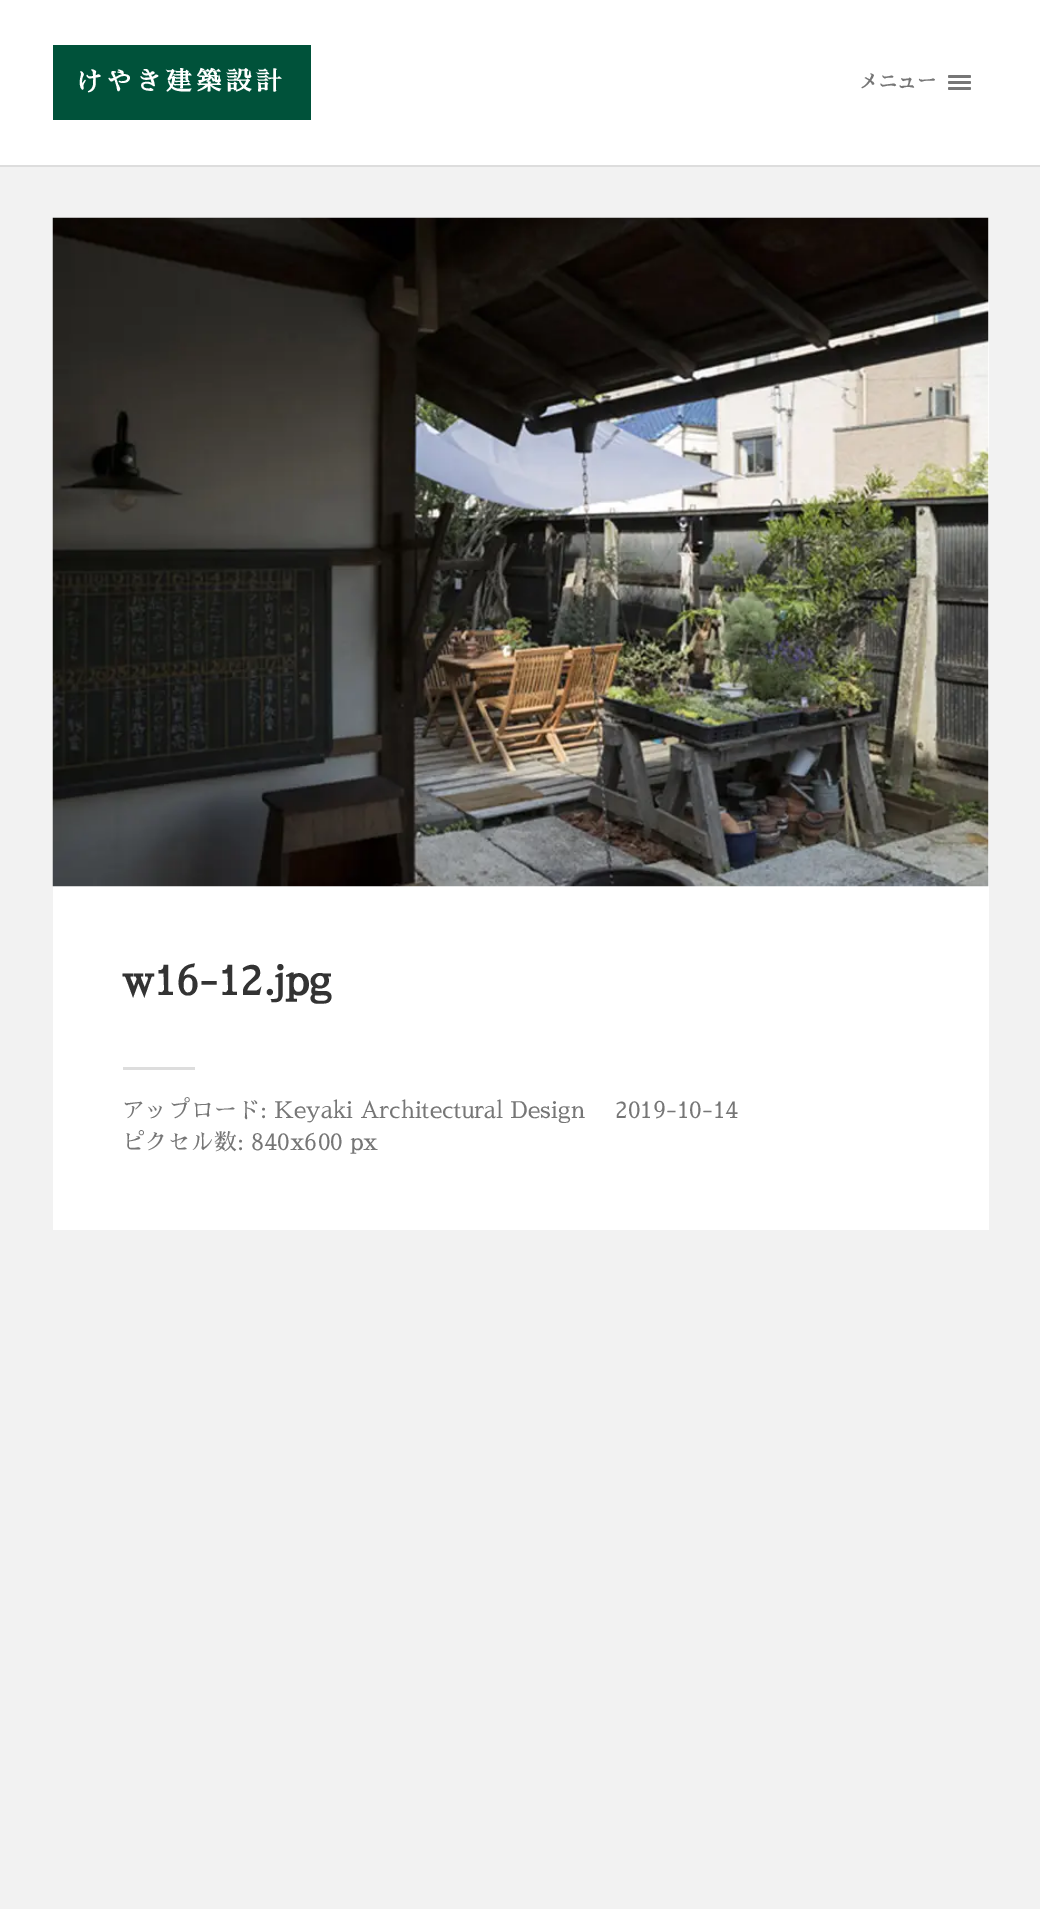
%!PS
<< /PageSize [1040 1909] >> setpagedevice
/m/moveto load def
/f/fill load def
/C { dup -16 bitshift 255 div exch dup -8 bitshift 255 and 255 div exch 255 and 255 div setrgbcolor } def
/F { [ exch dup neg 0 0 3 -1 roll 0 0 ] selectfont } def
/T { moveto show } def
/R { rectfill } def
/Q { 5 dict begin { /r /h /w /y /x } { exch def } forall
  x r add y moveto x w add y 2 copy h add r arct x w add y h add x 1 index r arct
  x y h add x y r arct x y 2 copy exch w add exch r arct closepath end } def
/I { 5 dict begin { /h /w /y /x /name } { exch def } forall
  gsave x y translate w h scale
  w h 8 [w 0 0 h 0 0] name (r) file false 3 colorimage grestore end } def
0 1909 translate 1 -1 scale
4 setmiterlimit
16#F2F2F2 C
0 0 1040 1909 R
16#FFFFFF C
0 0 1040 165 R
16#DDDDDD C
0 165 1040 2 R
16#00523A C
53 45 258 75 R
/SawarabiMincho-Bold 25.5 F
16#FFFFFF C
76 90 m 4.5 0 (けやき建築設計) ashow
/SawarabiMincho-Bold 19.5 F
16#767676 C
(メニュー) 858 88 T
948 75 23 3 1.5 Q f
948 81 23 3 1.5 Q f
948 87 23 3 1.5 Q f
16#FFFFFF C
53 218 936 1012 R
(1.rgb) 52 217 937 670 I
/SawarabiMincho-Bold 40.5 F
16#333333 C
(w16-12.jpg) 122 995 T
16#DDDDDD C
123 1067 72 3 R
/SawarabiMincho-Regular 22.95 F
16#767676 C
(アップロード: Keyaki Architectural Design) 122 1118 T
(2019-10-14) 615 1118 T
(ピクセル数: 840x600 px) 122 1150 T
showpage
